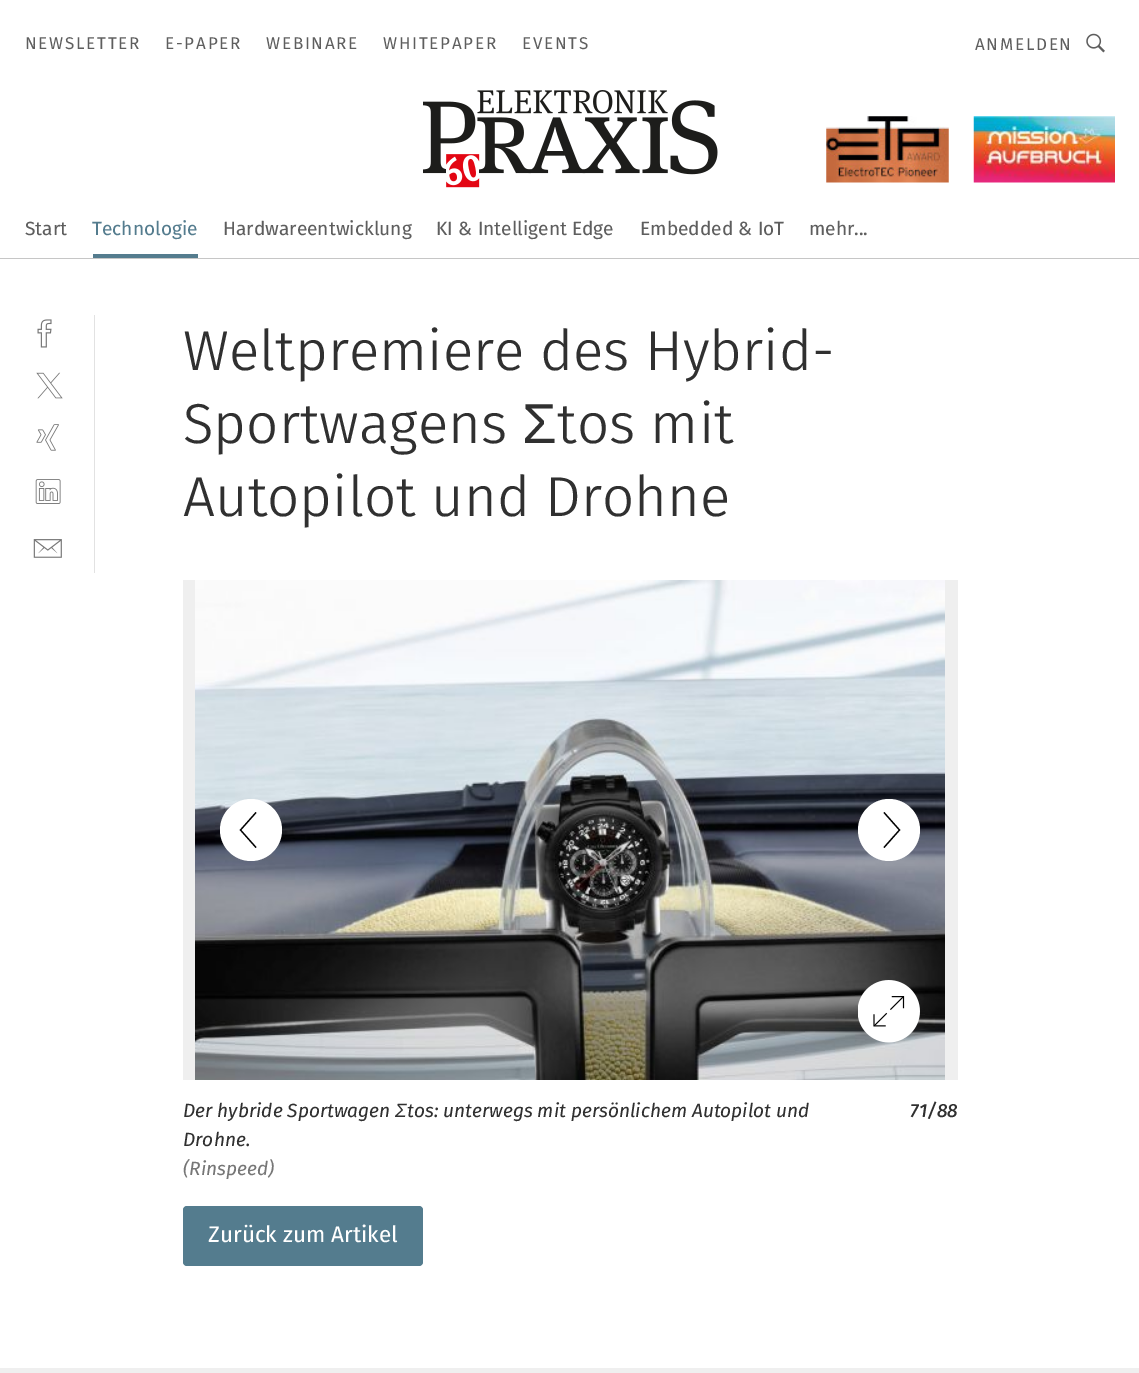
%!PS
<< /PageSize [1139 1373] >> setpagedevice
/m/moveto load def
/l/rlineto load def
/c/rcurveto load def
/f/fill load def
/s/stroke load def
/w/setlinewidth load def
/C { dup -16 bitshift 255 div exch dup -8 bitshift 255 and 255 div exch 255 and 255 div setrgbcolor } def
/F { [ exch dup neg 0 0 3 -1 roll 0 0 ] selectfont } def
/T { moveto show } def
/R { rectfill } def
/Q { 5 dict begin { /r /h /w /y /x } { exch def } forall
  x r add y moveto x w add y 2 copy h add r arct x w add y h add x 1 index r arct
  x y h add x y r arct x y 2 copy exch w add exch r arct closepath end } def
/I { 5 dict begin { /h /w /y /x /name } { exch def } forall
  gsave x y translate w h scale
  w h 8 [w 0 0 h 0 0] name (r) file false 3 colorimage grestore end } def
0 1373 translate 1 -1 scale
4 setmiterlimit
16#FFFFFF C
0 0 1139 1373 R
16#C6C6C6 C
0 258 1139 1 R
/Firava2-Regular 17 F
16#5E5E5E C
25 49 m 1.75 0 (NEWSLETTER) ashow
165 49 m 1.75 0 (E-PAPER) ashow
266 49 m 1.75 0 (WEBINARE) ashow
383 49 m 1.75 0 (WHITEPAPER) ashow
522 49 m 1.75 0 (EVENTS) ashow
975 50 m 1.75 0 (ANMELDEN) ashow
(1.rgb) 1086 33 19 20 I
(2.rgb) 423 90 295 98 I
(3.rgb) 826 116 123 67 I
(4.rgb) 973 116 142 67 I
/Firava-Regular 19.1 F
(Start) 25 235 T
16#547C8E C
93 254 105 4 R
(Technologie) 92 235 T
16#5E5E5E C
(Hardwareentwicklung) 223 235 T
(KI & Intelligent Edge) 436 235 T
(Embedded & IoT) 640 235 T
(mehr...) 809 235 T
16#E2E2E2 C
94 315 1 258 R
(5.rgb) 37 319 15 29 I
(6.rgb) 36 372 27 27 I
(7.rgb) 36 424 23 27 I
(8.rgb) 35 479 26 25 I
(9.rgb) 33 539 29 19 I
/Firava-Light 56.25 F
16#303030 C
(Weltpremiere des Hybrid-) 183 370 T
(Sportwagens) 183 443 T
/LiberationSans-Regular 56.25 F
(Σ) 522 443 T
/Firava-Light 56.25 F
(tos mit) 557 443 T
(Autopilot und Drohne) 183 516 T
16#EFEFEF C
183 580 775 500 R
(10.rgb) 195 580 750 500 I
16#FFFFFF C
251 861 m 17 0 31 -14 31 -31 c 0 -17 -14 -31 -31 -31 c -17 0 -31 14 -31 31 c 0 17 14 31 31 31 c f
16#000000 C
1.2 w
256 812.5 m -15.5 17.5 l 15.5 17.5 l s
16#FFFFFF C
889 799 m -17 0 -31 14 -31 31 c 0 17 14 31 31 31 c 17 0 31 -14 31 -31 c 0 -17 -14 -31 -31 -31 c f
16#000000 C
884 847.5 m 15.5 -17.5 l -15.5 -17.5 l s
(11.rgb) 858 980 62 63 I
/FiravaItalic-Italic 19.1 F
16#303030 C
(Der hybride Sportwagen) 183 1117 T
/LiberationSans-Italic 19.1 F
(Σ) 395 1117 T
/FiravaItalic-Italic 19.1 F
(tos: unterwegs mit persönlichem Autopilot und) 407 1117 T
(Drohne.) 183 1146 T
16#767676 C
(\(Rinspeed\)) 183 1175 T
/FiravaItalic-MediumItalic 19.1 F
16#303030 C
(71/88) 910 1117 T
16#547C8E C
183 1206 240 60 4 Q f
/Firava-Regular 22.5 F
16#FFFFFF C
(Zurück zum Artikel) 208 1242 T
16#EFEFEF C
0 1368 1139 5 R
showpage
